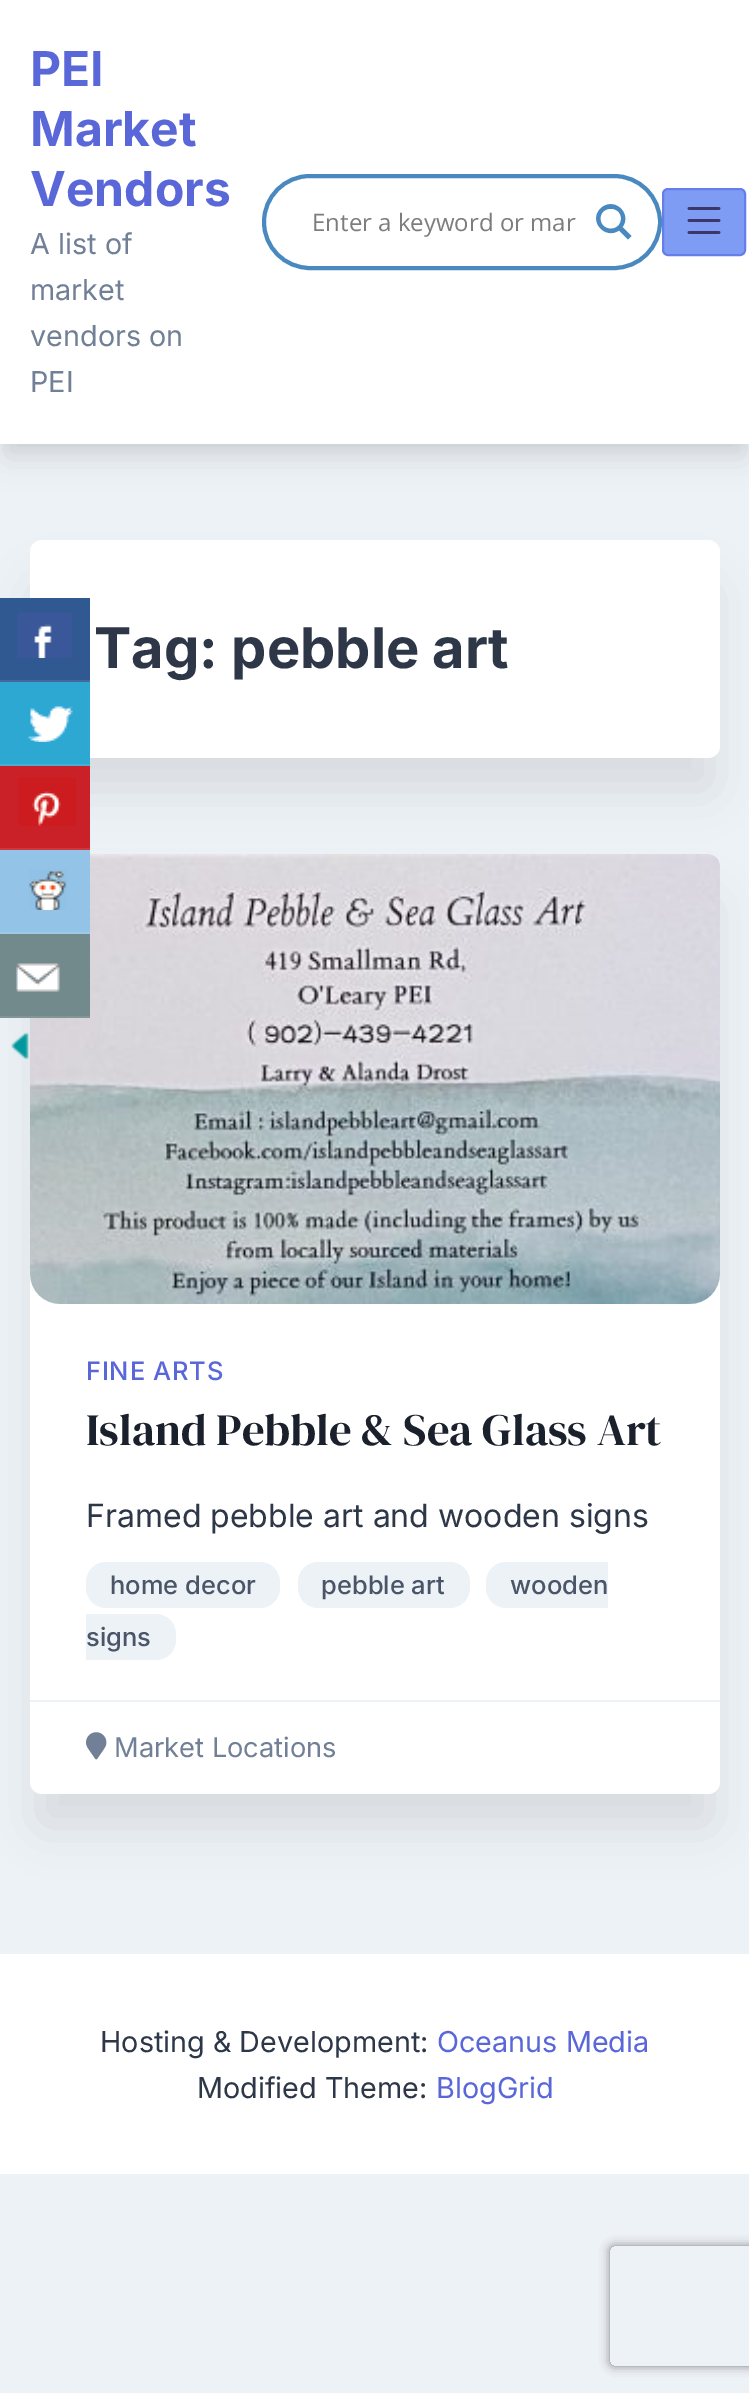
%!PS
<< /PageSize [749 2393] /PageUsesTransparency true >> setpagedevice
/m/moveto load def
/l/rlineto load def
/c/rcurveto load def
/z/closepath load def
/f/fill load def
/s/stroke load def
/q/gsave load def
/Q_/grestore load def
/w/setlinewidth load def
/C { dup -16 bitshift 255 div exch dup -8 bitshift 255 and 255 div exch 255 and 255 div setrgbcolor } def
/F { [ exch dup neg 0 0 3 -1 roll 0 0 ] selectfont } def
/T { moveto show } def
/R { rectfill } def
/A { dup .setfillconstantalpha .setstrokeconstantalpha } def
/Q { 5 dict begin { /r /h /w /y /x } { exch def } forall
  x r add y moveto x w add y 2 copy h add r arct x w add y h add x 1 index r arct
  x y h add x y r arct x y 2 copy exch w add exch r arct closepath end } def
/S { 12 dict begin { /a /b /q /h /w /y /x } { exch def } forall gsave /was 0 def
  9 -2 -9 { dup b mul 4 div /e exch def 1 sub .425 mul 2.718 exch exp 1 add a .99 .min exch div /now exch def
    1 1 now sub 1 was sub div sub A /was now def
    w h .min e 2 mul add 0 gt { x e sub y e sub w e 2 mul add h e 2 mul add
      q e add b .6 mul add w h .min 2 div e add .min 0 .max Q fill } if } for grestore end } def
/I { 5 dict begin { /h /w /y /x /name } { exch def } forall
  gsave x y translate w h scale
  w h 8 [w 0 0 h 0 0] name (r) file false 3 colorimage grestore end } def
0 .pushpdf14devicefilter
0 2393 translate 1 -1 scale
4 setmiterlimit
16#EDF2F7 C
0 0 749 2393 R
16#000000 C
4 12 742 436 0 6 .05 S
6 26 738 432 0 15 .1 S
16#FFFFFF C
0 0 749 444 R
/Inter-Bold 48 F
16#5A67D8 C
(PEI) 30 86 T
(Market) 30 146 T
(Vendors) 30 206 T
/Inter-Regular 28.75 F
16#718096 C
(A list of) 30 254 T
(market) 30 300 T
(vendors on) 30 346 T
(PEI) 30 392 T
16#4A89BF C
4 w
264 176 396 92 46 Q s
/OpenSans-Regular 24 F
16#7D7D7D C
(Enter a keyword or mar) 312 231 T
16#4A89BF C
631.5 236 m -9 -9 l 10 -14 -9 -31 -22 -18.5 c -12.5 12.5 4.5 31.5 18.5 22 c 9 9 l z 600.5 218.5 m 0 -13 20.5 -13 20.5 0 c 0 13.5 -20.5 13.5 -20.5 0 c z f
16#7F9CF5 C
663 189 82 66 5 Q q f Q_
16#667EEA C
2 w
s
(1.rgb) 687 207 34 27 I
16#000000 C
40 590 670 198 2 25 .1 S
16#FFFFFF C
30 540 690 218 12 Q f
/Inter-Bold 56 F
16#2D3748 C
(Tag: pebble art) 94 668 T
16#000000 C
40 904 670 920 2 25 .1 S
16#FFFFFF C
30 854 690 940 12 Q f
(2.rgb) 30 854 690 450 I
/Inter-Medium 25.5 F
16#5A67D8 C
86 1380 m .75 0 (FINE ARTS) ashow
/DMSerifDisplay-Regular 44.75 F
16#1A202C C
(Island Pebble & Sea Glass Art) 86 1445 T
/Inter-Regular 32 F
16#2D3748 C
(Framed pebble art and wooden signs) 86 1527 T
16#EDF2F7 C
86 1562 194 46 20 Q f
/Inter-Medium 25.5 F
16#4A5568 C
(home decor) 110 1594 T
16#EDF2F7 C
298 1562 172 46 20 Q f
16#4A5568 C
(pebble art) 321 1594 T
16#EDF2F7 C
506 1562 m 102 0 l 0 46 l -102 0 l -11 0 -20 -9 -20 -20 c 0 -6 l 0 -11 9 -20 20 -20 c z f
16#4A5568 C
(wooden) 510 1594 T
16#EDF2F7 C
86 1614 m 70 0 l 11 0 20 9 20 20 c 0 6 l 0 11 -9 20 -20 20 c -70 0 l z f
16#4A5568 C
(signs) 86 1646 T
16#EDF2F7 C
30 1700 690 2 R
(3.rgb) 86 1732 21 28 I
/Inter-Regular 27.25 F
16#718096 C
(Market Locations) 114 1757 T
16#FFFFFF C
0 1954 749 220 R
/Inter-Regular 28.75 F
16#2D3748 C
(Hosting & Development:) 100 2052 T
16#5A67D8 C
(Oceanus Media) 437 2052 T
16#2D3748 C
(Modified Theme:) 197 2098 T
16#5A67D8 C
(BlogGrid) 436 2098 T
16#305891 C
0 598 90 82 R
16#45699C C
0 680 90 2 R
(4.rgb) 17 612 56 46 I
16#2CA8D2 C
0 682 90 82 R
16#41B1D7 C
0 764 90 2 R
(5.rgb) 28 706 45 36 I
16#CA2027 C
0 766 90 82 R
16#CF363D C
0 848 90 2 R
(6.rgb) 18 777 58 49 I
16#93C3E6 C
0 850 90 82 R
16#9EC9E9 C
0 932 90 2 R
(7.rgb) 29 869 38 41 I
16#738A8D C
0 934 90 82 R
16#819698 C
0 1016 90 2 R
(8.rgb) 16 963 44 29 I
(9.rgb) 11 1032 18 28 I
q
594 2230 m 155 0 l 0 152 l -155 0 l z 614 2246 m 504 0 l 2 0 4 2 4 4 c 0 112 l 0 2 -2 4 -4 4 c -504 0 l -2 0 -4 -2 -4 -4 c 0 -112 l 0 -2 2 -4 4 -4 c z eoclip newpath
16#808080 C
610 2246 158 120 4 5 1 S
Q_
.poppdf14devicefilter showpage
